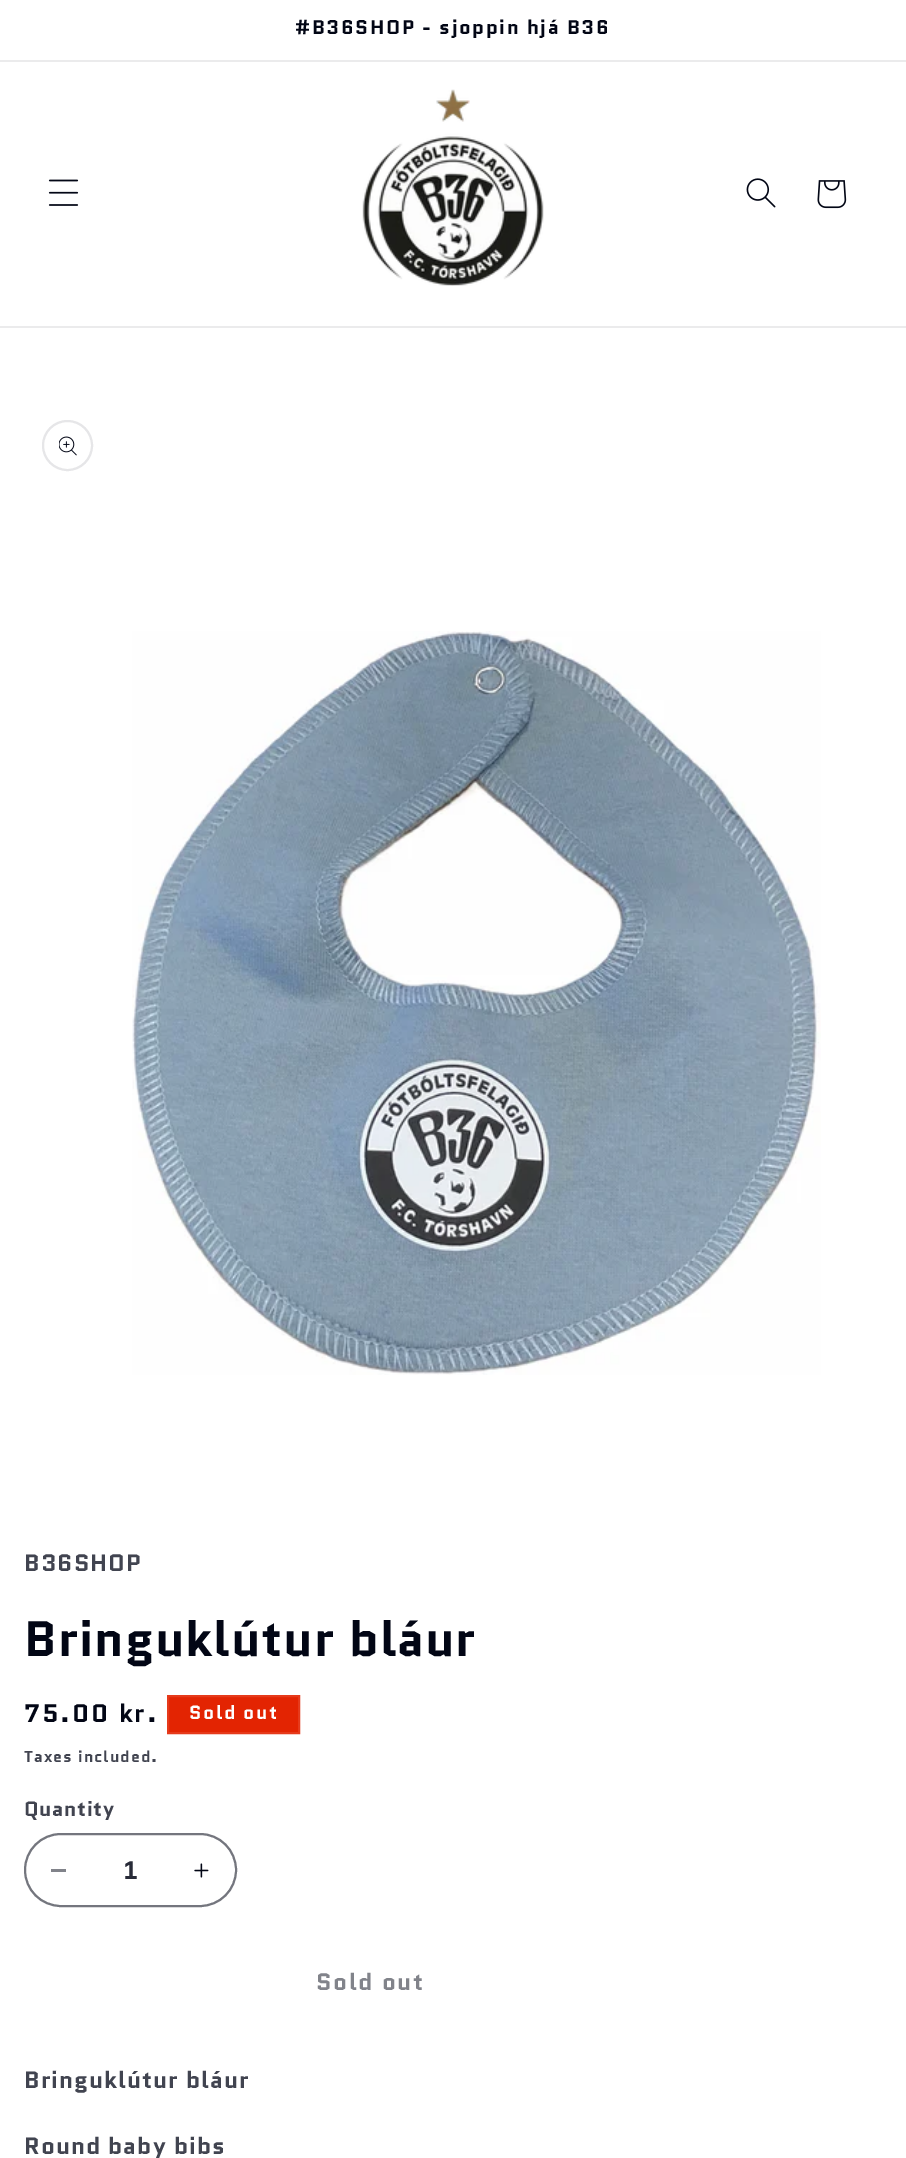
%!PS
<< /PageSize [906 2158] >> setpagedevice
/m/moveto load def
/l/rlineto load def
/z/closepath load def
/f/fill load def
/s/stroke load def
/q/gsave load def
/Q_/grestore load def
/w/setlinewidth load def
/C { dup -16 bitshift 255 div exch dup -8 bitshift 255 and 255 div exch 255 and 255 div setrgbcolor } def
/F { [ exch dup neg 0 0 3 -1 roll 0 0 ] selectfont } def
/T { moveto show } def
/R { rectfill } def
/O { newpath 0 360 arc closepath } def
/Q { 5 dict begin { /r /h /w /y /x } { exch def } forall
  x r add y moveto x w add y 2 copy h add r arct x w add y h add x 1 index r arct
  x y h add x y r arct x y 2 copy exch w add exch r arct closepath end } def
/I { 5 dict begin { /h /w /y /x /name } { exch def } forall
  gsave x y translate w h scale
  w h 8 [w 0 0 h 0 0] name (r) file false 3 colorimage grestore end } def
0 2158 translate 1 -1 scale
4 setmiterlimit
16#FFFFFF C
0 0 906 2158 R
16#EBEBEC C
0 60 906 2 R
/Quantico-Bold 19.75 F
16#020615 C
295 34 m 1.6 0 (#B36SHOP - sjoppin hjá B36) ashow
16#EBEBEC C
0 326 906 2 R
(1.rgb) 48 179 31 27 I
(2.rgb) 362 89 182 197 I
(3.rgb) 746 178 30 30 I
(4.rgb) 817 180 30 29 I
16#E6E6E8 C
2 w
67.5 445.5 24.5 O s
(5.rgb) 59 436 18 20 I
(6.rgb) 132 631 689 744 I
/Quantico-Bold 23.6 F
16#414450 C
24 1571 m 1 0 (B36SHOP) ashow
/Quantico-Bold 49.5 F
16#020615 C
24 1656 m 1 0 (Bringuklútur bláur) ashow
/Quantico-Bold 25.25 F
24 1722 m 2 0 (75.00 kr.) ashow
16#E32402 C
168 1696 m 131 0 l 0 37 l -131 0 l z q f Q_
16#E63A1B C
s
/Quantico-Bold 19 F
16#FFFFFF C
189 1719 m 1.6 0 (Sold out) ashow
/Quantico-Bold 15.75 F
16#414450 C
24 1762 m 1.1 0 (Taxes included.) ashow
/Quantico-Bold 20.5 F
24 1816 m .75 0 (Quantity) ashow
16#81838A C
51 1869 15 3 R
(7.rgb) 194 1863 15 15 I
16#74767E C
25 1834 211 72 36 Q s
/Quantico-Bold 25.25 F
16#282B38 C
(1) 123 1879 T
/Quantico-Bold 23.6 F
16#81838A C
316 1990 m 1.6 0 (Sold out) ashow
16#414450 C
24 2088 m 1 0 (Bringuklútur bláur) ashow
24 2154 m 1 0 (Round baby bibs) ashow
showpage
